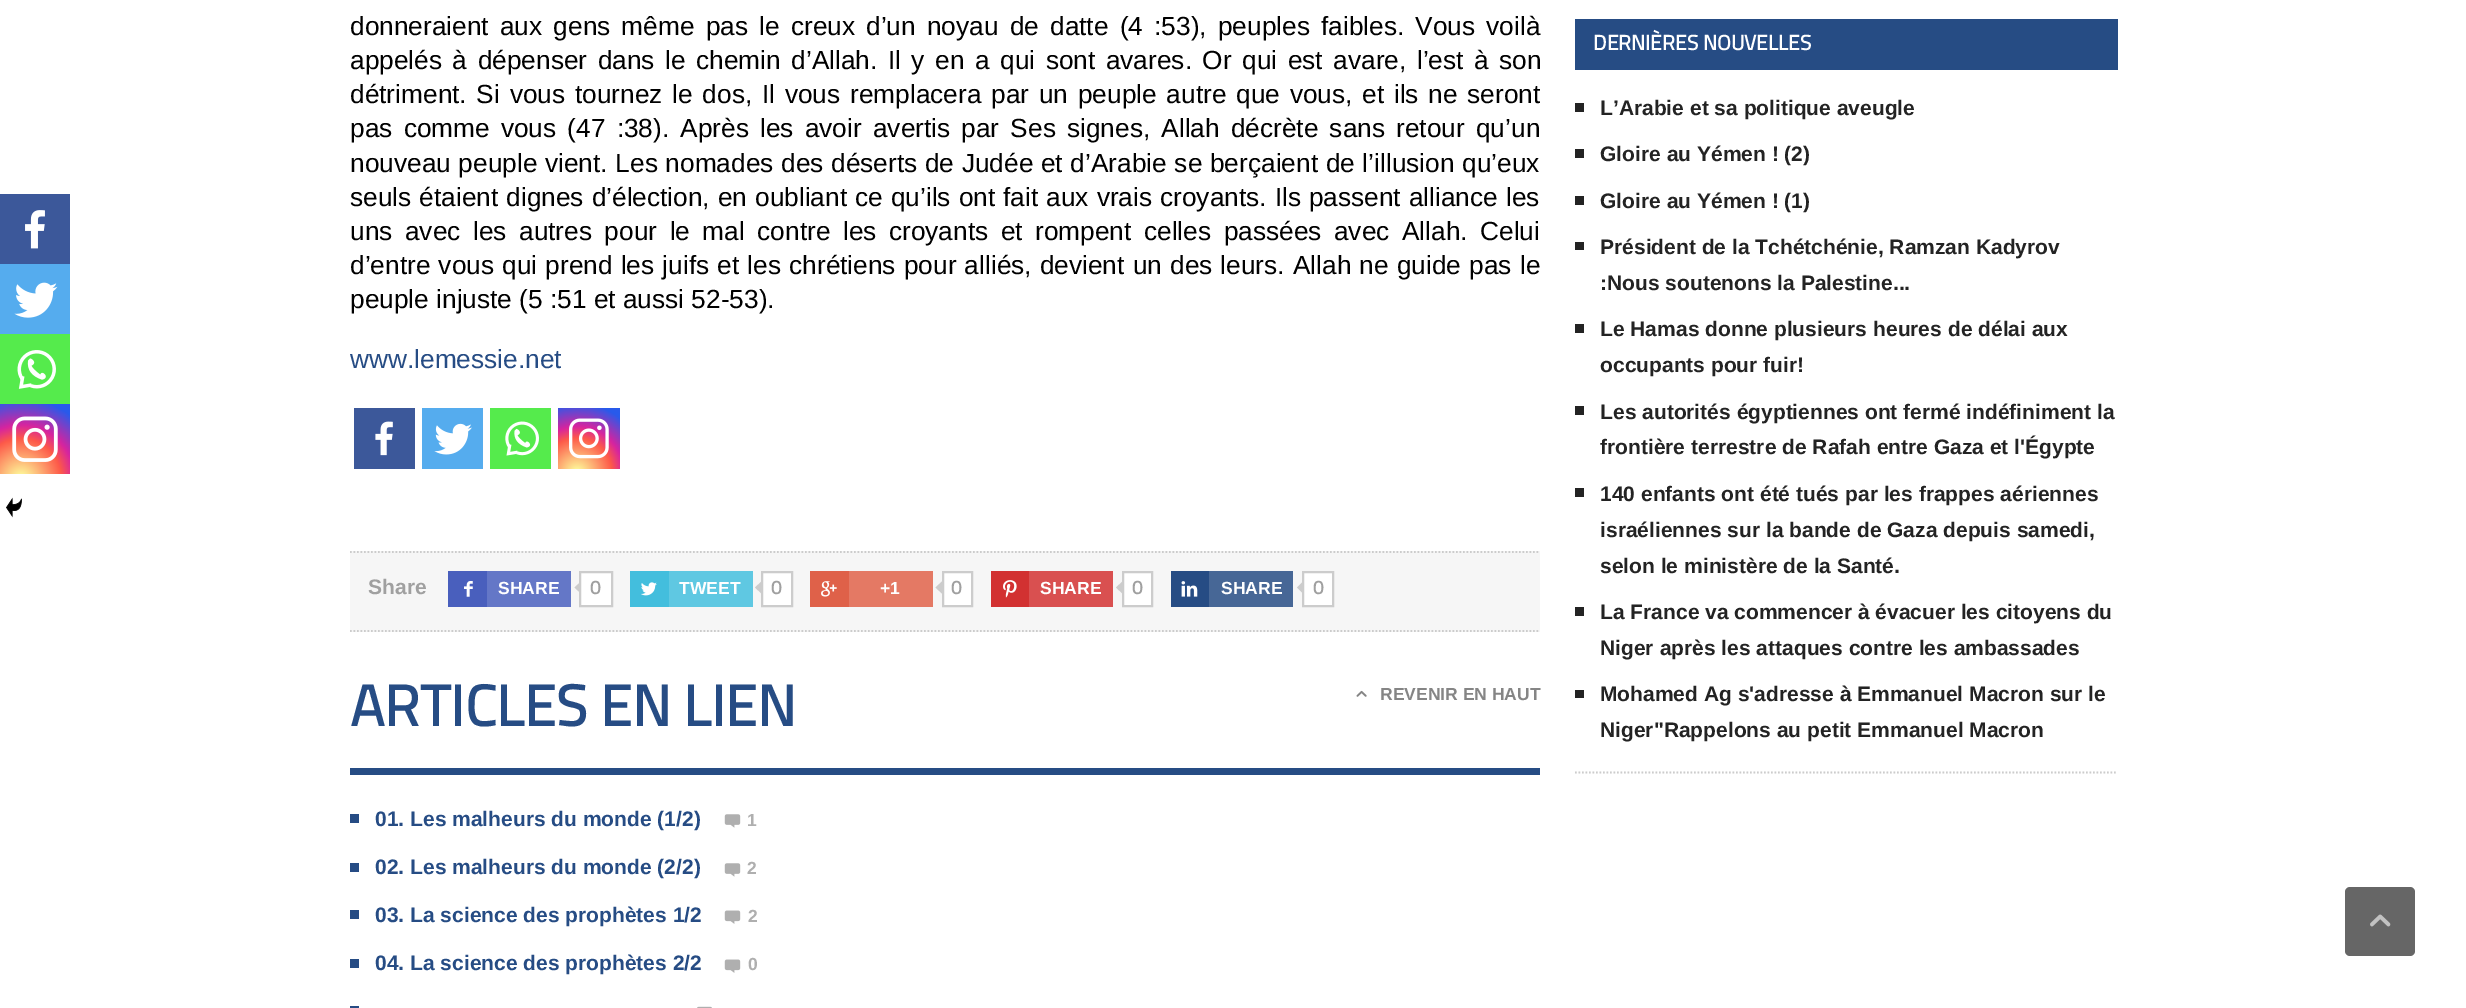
%!PS
<< /PageSize [2466 1008] >> setpagedevice
/m/moveto load def
/l/rlineto load def
/z/closepath load def
/f/fill load def
/s/stroke load def
/q/gsave load def
/Q_/grestore load def
/w/setlinewidth load def
/C { dup -16 bitshift 255 div exch dup -8 bitshift 255 and 255 div exch 255 and 255 div setrgbcolor } def
/F { [ exch dup neg 0 0 3 -1 roll 0 0 ] selectfont } def
/T { moveto show } def
/R { rectfill } def
/Q { 5 dict begin { /r /h /w /y /x } { exch def } forall
  x r add y moveto x w add y 2 copy h add r arct x w add y h add x 1 index r arct
  x y h add x y r arct x y 2 copy exch w add exch r arct closepath end } def
/I { 5 dict begin { /h /w /y /x /name } { exch def } forall
  gsave x y translate w h scale
  w h 8 [w 0 0 h 0 0] name (r) file false 3 colorimage grestore end } def
0 1008 translate 1 -1 scale
4 setmiterlimit
16#FFFFFF C
0 0 2466 1008 R
16#3C589A C
0 194 70 70 R
(1.rgb) 25 210 20 39 I
16#55ACEE C
0 264 70 70 R
(2.rgb) 14 282 44 36 I
16#55EB4C C
0 334 70 70 R
(3.rgb) 17 350 39 39 I
q 0 404 m 70 0 l 0 70 l -70 0 l z clip newpath 21 479 translate 90 90 scale
<< /ShadingType 3 /ColorSpace /DeviceRGB /Coords [0 0 0 0 0 1] /Extend [true true] /Function << /FunctionType 3 /Domain [0 1] /Functions [<< /FunctionType 2 /Domain [0 1] /C0 [.992 .957 .592] /C1 [.992 .957 .592] /N 1 >> << /FunctionType 2 /Domain [0 1] /C0 [.992 .957 .592] /C1 [.992 .349 .286] /N 1 >> << /FunctionType 2 /Domain [0 1] /C0 [.992 .349 .286] /C1 [.839 .141 .624] /N 1 >> << /FunctionType 2 /Domain [0 1] /C0 [.839 .141 .624] /C1 [.157 .353 .922] /N 1 >> << /FunctionType 2 /Domain [0 1] /C0 [.157 .353 .922] /C1 [.157 .353 .922] /N 1 >>] /Bounds [.05 .45 .6 .9] /Encode [0 1 0 1 0 1 0 1 0 1] >> >> shfill Q_
(4.rgb) 12 416 46 46 I
(5.rgb) 6 497 16 21 I
/LiberationSans-Regular 26.25 F
16#000000 C
350 35 m 3.9 0 32 (donneraient aux gens même pas le creux d’un noyau de datte \(4 :53\), peuples faibles. Vous voilà) widthshow
350 69 m 3.25 0 32 (appelés à dépenser dans le chemin d’Allah. Il y en a qui sont avares. Or qui est avare, l’est à son) widthshow
350 103 m 2.5 0 32 (détriment. Si vous tournez le dos, Il vous remplacera par un peuple autre que vous, et ils ne seront) widthshow
350 137 m 3.9 0 32 (pas comme vous \(47 :38\). Après les avoir avertis par Ses signes, Allah décrète sans retour qu’un) widthshow
350 172 m .4 0 32 (nouveau peuple vient. Les nomades des déserts de Judée et d’Arabie se berçaient de l’illusion qu’eux) widthshow
350 206 m .75 0 32 (seuls étaient dignes d’élection, en oubliant ce qu’ils ont fait aux vrais croyants. Ils passent alliance les) widthshow
350 240 m 5.25 0 32 (uns avec les autres pour le mal contre les croyants et rompent celles passées avec Allah. Celui) widthshow
350 274 m .9 0 32 (d’entre vous qui prend les juifs et les chrétiens pour alliés, devient un des leurs. Allah ne guide pas le) widthshow
(peuple injuste \(5 :51 et aussi 52-53\).) 350 308 T
16#264C84 C
(www.lemessie.net) 350 368 T
16#3C589A C
354 408 61 61 R
(6.rgb) 375 421 18 35 I
16#55ACEE C
422 408 61 61 R
(7.rgb) 434 423 38 32 I
16#55EB4C C
490 408 61 61 R
(8.rgb) 505 421 34 35 I
q 558 408 m 62 0 l 0 61 l -62 0 l z clip newpath 577 473 translate 78 78 scale
<< /ShadingType 3 /ColorSpace /DeviceRGB /Coords [0 0 0 0 0 1] /Extend [true true] /Function << /FunctionType 3 /Domain [0 1] /Functions [<< /FunctionType 2 /Domain [0 1] /C0 [.992 .957 .592] /C1 [.992 .957 .592] /N 1 >> << /FunctionType 2 /Domain [0 1] /C0 [.992 .957 .592] /C1 [.992 .349 .286] /N 1 >> << /FunctionType 2 /Domain [0 1] /C0 [.992 .349 .286] /C1 [.839 .141 .624] /N 1 >> << /FunctionType 2 /Domain [0 1] /C0 [.839 .141 .624] /C1 [.157 .353 .922] /N 1 >> << /FunctionType 2 /Domain [0 1] /C0 [.157 .353 .922] /C1 [.157 .353 .922] /N 1 >>] /Bounds [.05 .45 .6 .9] /Encode [0 1 0 1 0 1 0 1 0 1] >> >> shfill Q_
(9.rgb) 569 418 40 41 I
16#F6F6F6 C
350 551 1190 81 R
16#CCCCCC C
1.8 w
[1.75 1.75] 0 setdash
350 552 m 1190 0 l s
350 631 m 1190 0 l s
/LiberationSans-Bold 21 F
16#A0A0A0 C
(Share) 368 594 T
16#495FBD C
448 571 39 36 R
(10.rgb) 464 581 9 16 I
16#6477C7 C
487 571 84 36 R
/LiberationSans-Bold 17.5 F
16#FFFFFF C
(SHARE) 498 594 T
580 572 m 32 0 l 0 34 l -32 0 l z q f Q_
16#CCCCCC C
2 w
[] 0 setdash
s
q
572 572 9 34 rectclip
581 581.5 m 6 6 l -6 6 l -6.5 -6 l z f
Q_
/TitilliumWeb-Bold 19 F
16#A0A0A0 C
(0) 590 594 T
16#43BEDD C
630 571 39 36 R
(11.rgb) 641 582 16 14 I
16#5FC8E2 C
669 571 84 36 R
/LiberationSans-Bold 17.5 F
16#FFFFFF C
(TWEET) 679 594 T
762 572 m 30 0 l 0 34 l -30 0 l z q f Q_
16#CCCCCC C
s
q
754 572 9 34 rectclip
761.5 581.5 m 6 6 l -6 6 l -6.5 -6 l z f
Q_
/TitilliumWeb-Bold 19 F
16#A0A0A0 C
(0) 771 594 T
16#DF6149 C
810 571 39 36 R
(12.rgb) 821 581 16 16 I
16#E47964 C
849 571 84 36 R
/LiberationSans-Bold 17.5 F
16#FFFFFF C
(+1) 880 594 T
943 572 m 29 0 l 0 34 l -29 0 l z q f Q_
16#CCCCCC C
s
q
935 572 8 34 rectclip
942 581.5 m 6 6 l -6 6 l -6.5 -6 l z f
Q_
/TitilliumWeb-Bold 19 F
16#A0A0A0 C
(0) 951 594 T
16#D23131 C
991 571 38 36 R
(13.rgb) 1003 580 14 18 I
16#D95050 C
1029 571 84 36 R
/LiberationSans-Bold 17.5 F
16#FFFFFF C
(SHARE) 1040 594 T
1123 572 m 29 0 l 0 34 l -29 0 l z q f Q_
16#CCCCCC C
s
q
1115 572 9 34 rectclip
1122.5 581.5 m 6 6 l -6 6 l -6.5 -6 l z f
Q_
/TitilliumWeb-Bold 19 F
16#A0A0A0 C
(0) 1132 594 T
16#264C84 C
1171 571 38 36 R
(14.rgb) 1181 581 17 16 I
16#476796 C
1209 571 84 36 R
/LiberationSans-Bold 17.5 F
16#FFFFFF C
(SHARE) 1221 594 T
1303 572 m 30 0 l 0 34 l -30 0 l z q f Q_
16#CCCCCC C
s
q
1295 572 9 34 rectclip
1303 581.5 m 6 6 l -6 6 l -6 -6 l z f
Q_
/TitilliumWeb-Bold 19 F
16#A0A0A0 C
(0) 1313 594 T
16#264C84 C
350 768 1190 7 R
/TitilliumWeb-Bold 57.75 F
(ARTICLES EN LIEN) 350 726 T
(15.rgb) 1356 690 11 7 I
/LiberationSans-Bold 17.5 F
16#858585 C
(REVENIR EN HAUT) 1380 700 T
16#264C84 C
350 814 9 9 R
/LiberationSans-Bold 21 F
(01. Les malheurs du monde \(1/2\)) 375 826 T
(16.rgb) 724 814 17 14 I
/LiberationSans-Bold 17.5 F
16#AFAFAF C
(1) 747 826 T
16#264C84 C
350 863 9 9 R
/LiberationSans-Bold 21 F
(02. Les malheurs du monde \(2/2\)) 375 874 T
(16.rgb) 724 863 17 14 I
/LiberationSans-Bold 17.5 F
16#AFAFAF C
(2) 747 874 T
16#264C84 C
350 910 9 9 R
/LiberationSans-Bold 21 F
(03. La science des prophètes 1/2) 375 922 T
(17.rgb) 724 910 17 14 I
/LiberationSans-Bold 17.5 F
16#AFAFAF C
(2) 748 922 T
16#264C84 C
350 959 9 9 R
/LiberationSans-Bold 21 F
(04. La science des prophètes 2/2) 375 970 T
(17.rgb) 724 959 17 14 I
/LiberationSans-Bold 17.5 F
16#AFAFAF C
(0) 748 970 T
16#264C84 C
350 1006 9 2 R
(18.rgb) 697 1006 15 2 I
16#CCCCCC C
1.8 w
[1.75 1.75] 0 setdash
1575 772.5 m 542.5 0 l s
16#264C84 C
1575 19 543 51 R
/TitilliumWeb-Bold 21 F
16#FFFFFF C
(DERNIÈRES NOUVELLES) 1593 50 T
16#232323 C
1575 103 9 9 R
/LiberationSans-Bold 21 F
(L’Arabie et sa politique aveugle) 1600 115 T
1575 149 9 9 R
(Gloire au Yémen ! \(2\)) 1600 161 T
1575 196 9 9 R
(Gloire au Yémen ! \(1\)) 1600 208 T
1575 242 9 8 R
(Président de la Tchétchénie, Ramzan Kadyrov) 1600 254 T
(:Nous soutenons la Palestine...) 1600 290 T
1575 324 9 9 R
(Le Hamas donne plusieurs heures de délai aux) 1600 336 T
(occupants pour fuir!) 1600 372 T
1575 406 9 9 R
(Les autorités égyptiennes ont fermé indéfiniment la) 1600 419 T
(frontière terrestre de Rafah entre Gaza et l'Égypte) 1600 454 T
1575 488 9 9 R
(140 enfants ont été tués par les frappes aériennes) 1600 501 T
(israéliennes sur la bande de Gaza depuis samedi,) 1600 537 T
(selon le ministère de la Santé.) 1600 573 T
1575 607 9 9 R
(La France va commencer à évacuer les citoyens du) 1600 619 T
(Niger après les attaques contre les ambassades) 1600 655 T
1575 690 9 8 R
(Mohamed Ag s'adresse à Emmanuel Macron sur le) 1600 701 T
(Niger"Rappelons au petit Emmanuel Macron) 1600 737 T
16#666666 C
2345 887 70 69 5 Q f
(19.rgb) 2370 914 21 13 I
showpage
